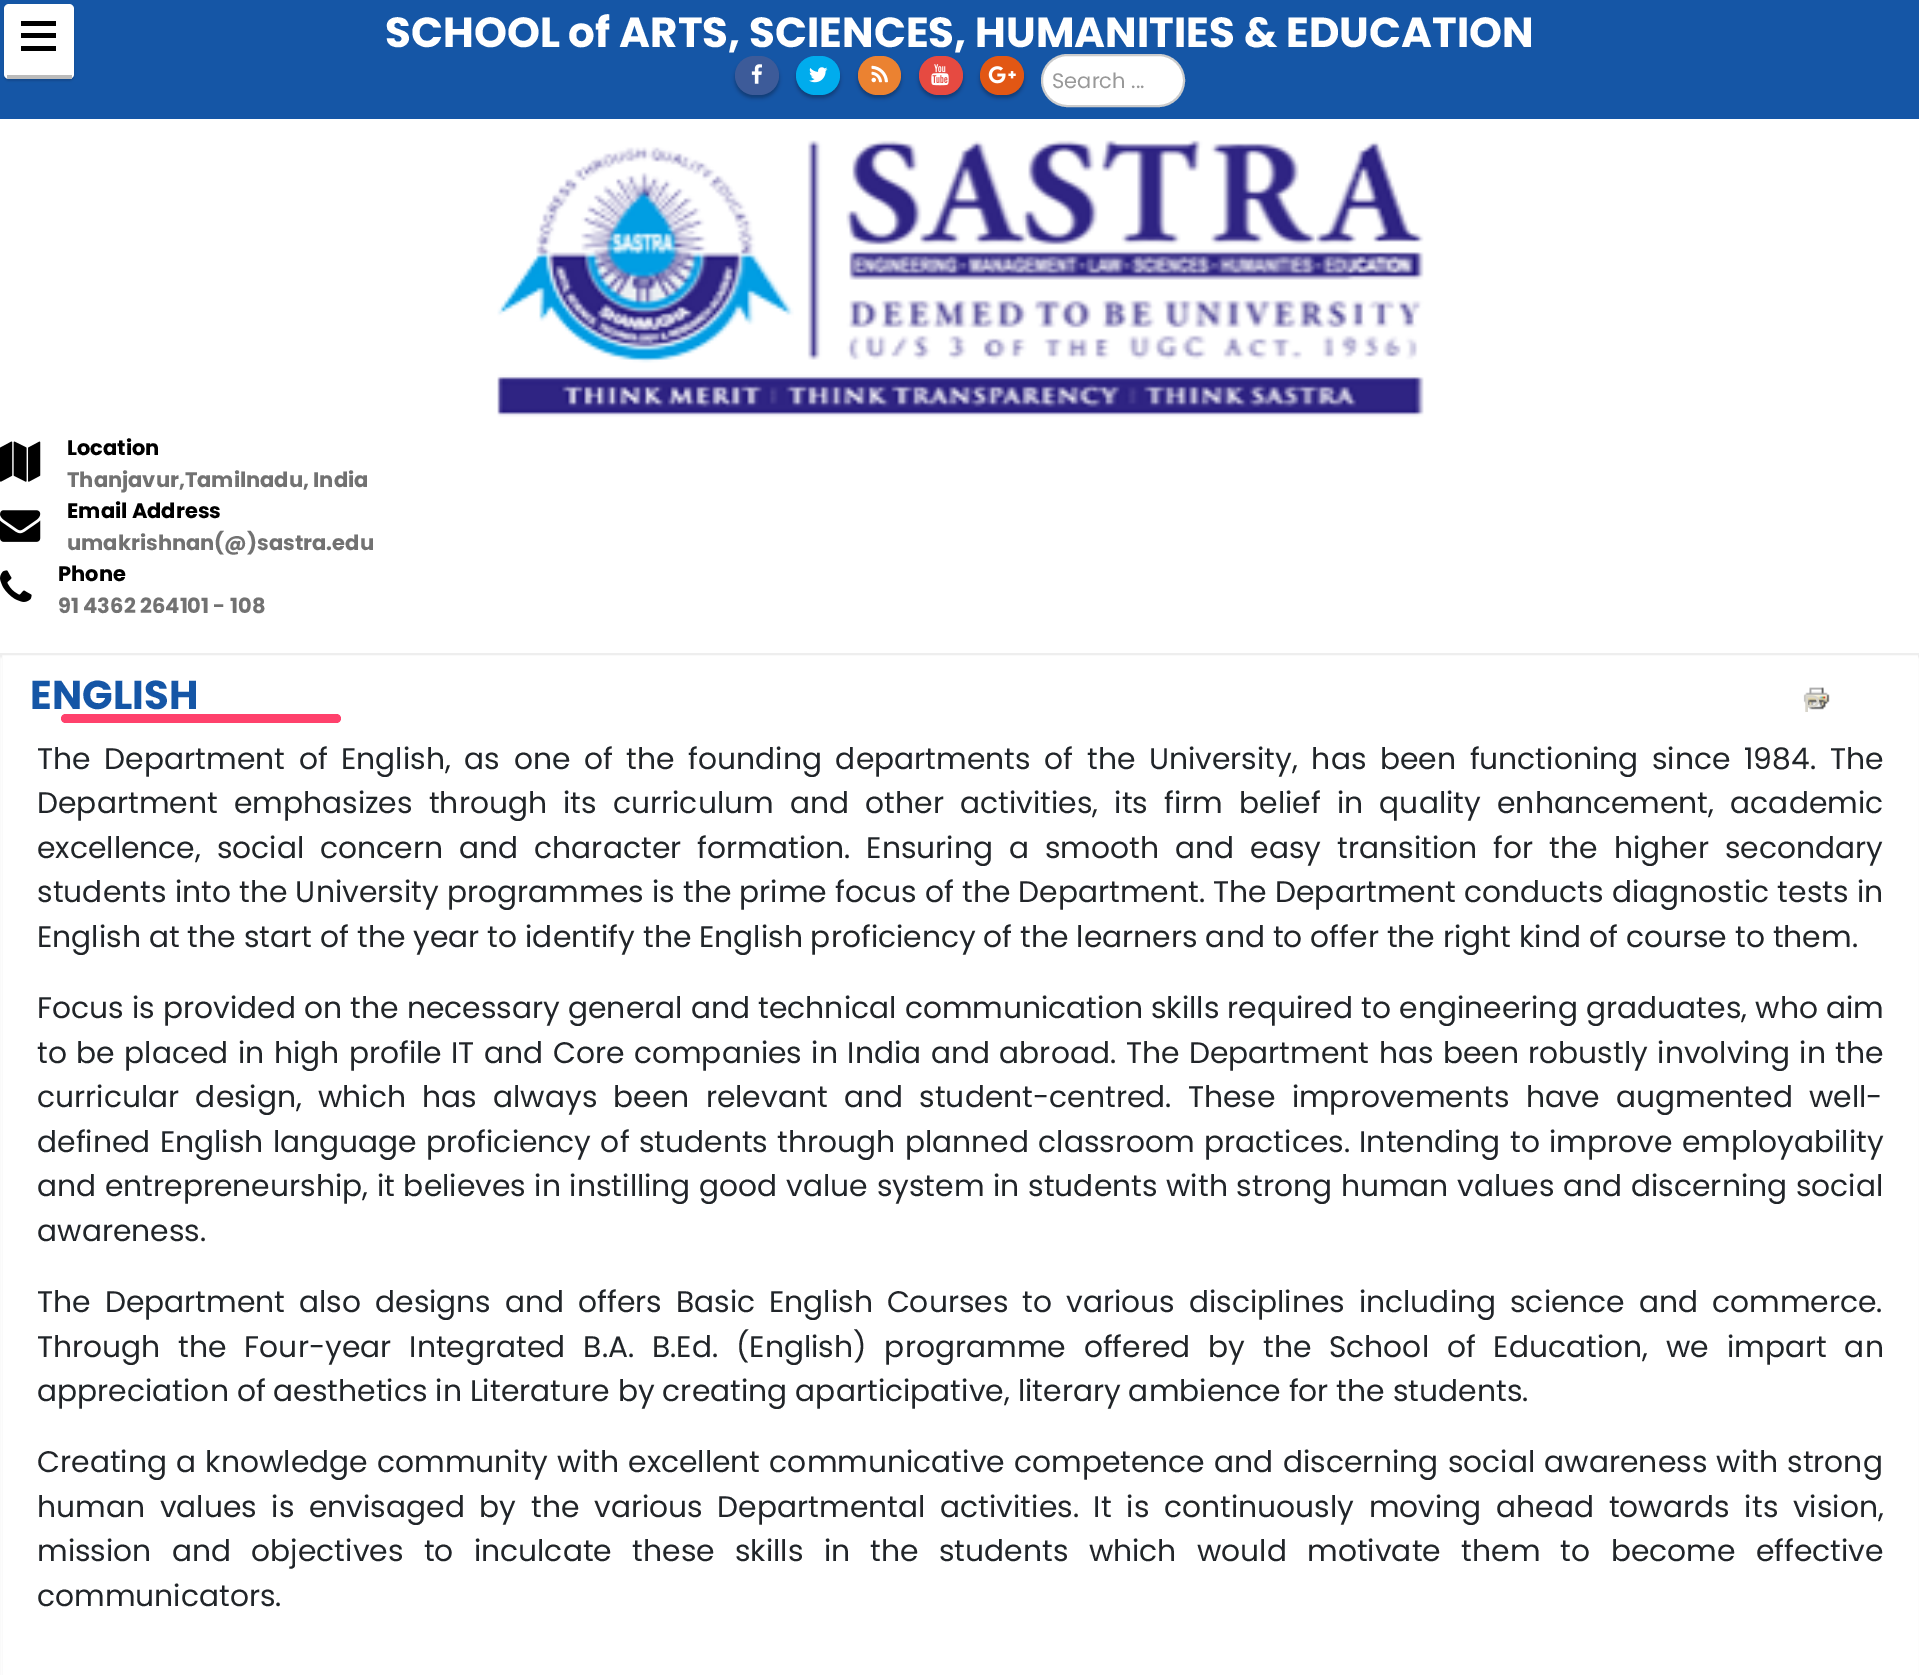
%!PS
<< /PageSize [1919 1675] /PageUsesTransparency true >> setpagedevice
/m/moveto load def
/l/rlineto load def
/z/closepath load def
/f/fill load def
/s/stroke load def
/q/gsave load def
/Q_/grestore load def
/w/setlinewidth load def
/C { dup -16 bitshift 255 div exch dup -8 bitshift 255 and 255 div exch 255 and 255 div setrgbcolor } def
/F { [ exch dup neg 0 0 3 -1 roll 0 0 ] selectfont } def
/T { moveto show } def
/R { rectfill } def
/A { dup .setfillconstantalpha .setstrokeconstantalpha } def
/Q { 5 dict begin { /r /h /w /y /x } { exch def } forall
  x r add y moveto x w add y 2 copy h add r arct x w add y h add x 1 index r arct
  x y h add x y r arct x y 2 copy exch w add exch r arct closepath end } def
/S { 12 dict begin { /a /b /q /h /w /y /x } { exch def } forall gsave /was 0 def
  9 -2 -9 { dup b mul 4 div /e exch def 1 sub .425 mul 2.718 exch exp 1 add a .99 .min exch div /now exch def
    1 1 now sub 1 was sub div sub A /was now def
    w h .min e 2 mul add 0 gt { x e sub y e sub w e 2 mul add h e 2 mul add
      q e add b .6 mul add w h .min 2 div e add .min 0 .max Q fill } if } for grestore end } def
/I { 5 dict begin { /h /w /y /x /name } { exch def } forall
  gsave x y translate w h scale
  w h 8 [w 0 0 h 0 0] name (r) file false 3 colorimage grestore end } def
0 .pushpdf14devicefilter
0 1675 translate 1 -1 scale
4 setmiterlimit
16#FFFFFF C
0 0 1919 1675 R
16#1556A6 C
0 0 1919 119 R
16#000000 C
4 5 70 76 5 1 .15 S
16#FFFFFF C
4 4 70 75 5 Q f
16#BBBBBB C
7 75 65 4 R
16#000000 C
21 21 35 5 R
21 33 35 5 R
21 46 35 5 R
/Poppins-Bold 42 F
16#FFFFFF C
(SCHOOL of ARTS, SCIENCES, HUMANITIES & EDUCATION) 385 47 T
16#000000 C
735 60 44 38 19 2 .3 S
16#3D5B99 C
735 56 44 39 19.5 Q f
(1.rgb) 751 64 11 20 I
16#000000 C
796 60 44 38 19 2 .3 S
16#00ACED C
796 56 44 39 19.5 Q f
(2.rgb) 809 67 19 16 I
16#000000 C
858 60 43 38 19 2 .3 S
16#EB8231 C
858 56 43 39 19.5 Q f
(3.rgb) 871 65 17 18 I
16#000000 C
919 60 44 38 19 2 .3 S
16#E64A41 C
919 56 44 39 19.5 Q f
(4.rgb) 931 64 18 22 I
16#000000 C
980 60 44 38 19 2 .3 S
16#E25714 C
980 56 44 39 19.5 Q f
(5.rgb) 988 66 28 18 I
16#FFFFFF C
1042 55 142 51 25.5 Q q f Q_
16#CCCCCC C
2 w
s
/Poppins-Regular 21 F
16#999999 C
(Search ...) 1052 88 T
(6.rgb) 497 140 927 277 I
(7.rgb) 0 441 41 41 I
/Poppins-Bold 21 F
16#000000 C
(Location) 67 455 T
16#727272 C
(Thanjavur,Tamilnadu, India) 67 487 T
(8.rgb) 0 510 41 32 I
16#000000 C
(Email Address) 67 518 T
16#727272 C
(umakrishnan\(@\)sastra.edu) 67 550 T
(9.rgb) 0 570 32 32 I
16#000000 C
(Phone) 58 581 T
16#727272 C
(91 4362 264101 - 108) 58 613 T
16#EEEEEE C
1 654 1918 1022 rectstroke
q
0 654 m 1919 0 l 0 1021 l -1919 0 l z 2 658 m 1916 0 l 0 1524 l -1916 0 l z eoclip newpath
16#FFFFFF C
0 658 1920 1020 0 1 1 S
Q_
/Poppins-Bold 40.25 F
16#1556A6 C
(ENGLISH) 30 709 T
16#FF416C C
61 714 280 9 4.5 Q f
(10.rgb) 1803 687 27 23 I
q
1803 684 28 28 rectclip
/Poppins-Regular 29.75 F
16#D7D4CA C
(P) 1803 716 T
Q_
/Poppins-Regular 29.75 F
16#212529 C
37 769 m 5.75 0 32 (The Department of English, as one of the founding departments of the University, has been functioning since 1984. The) widthshow
37 813 m 8.25 0 32 (Department emphasizes through its curriculum and other activities, its firm belief in quality enhancement, academic) widthshow
37 858 m 8.1 0 32 (excellence, social concern and character formation. Ensuring a smooth and easy transition for the higher secondary) widthshow
37 902 m .25 0 32 (students into the University programmes is the prime focus of the Department. The Department conducts diagnostic tests in) widthshow
(English at the start of the year to identify the English proficiency of the learners and to offer the right kind of course to them.) 37 947 T
37 1018 m .25 0 32 (Focus is provided on the necessary general and technical communication skills required to engineering graduates, who aim) widthshow
37 1063 m 1.5 0 32 (to be placed in high profile IT and Core companies in India and abroad. The Department has been robustly involving in the) widthshow
37 1107 m 8.25 0 32 (curricular design, which has always been relevant and student-centred. These improvements have augmented well-) widthshow
37 1152 m 1.4 0 32 (defined English language proficiency of students through planned classroom practices. Intending to improve employability) widthshow
37 1196 m .75 0 32 (and entrepreneurship, it believes in instilling good value system in students with strong human values and discerning social) widthshow
(awareness.) 37 1241 T
37 1312 m 6 0 32 (The Department also designs and offers Basic English Courses to various disciplines including science and commerce.) widthshow
37 1357 m 9.9 0 32 (Through the Four-year Integrated B.A. B.Ed. \(English\) programme offered by the School of Education, we impart an) widthshow
(appreciation of aesthetics in Literature by creating aparticipative, literary ambience for the students.) 37 1401 T
37 1472 m 1.25 0 32 (Creating a knowledge community with excellent communicative competence and discerning social awareness with strong) widthshow
37 1517 m 6.75 0 32 (human values is envisaged by the various Departmental activities. It is continuously moving ahead towards its vision,) widthshow
37 1561 m 12.4 0 32 (mission and objectives to inculcate these skills in the students which would motivate them to become effective) widthshow
(communicators.) 37 1606 T
.poppdf14devicefilter showpage
